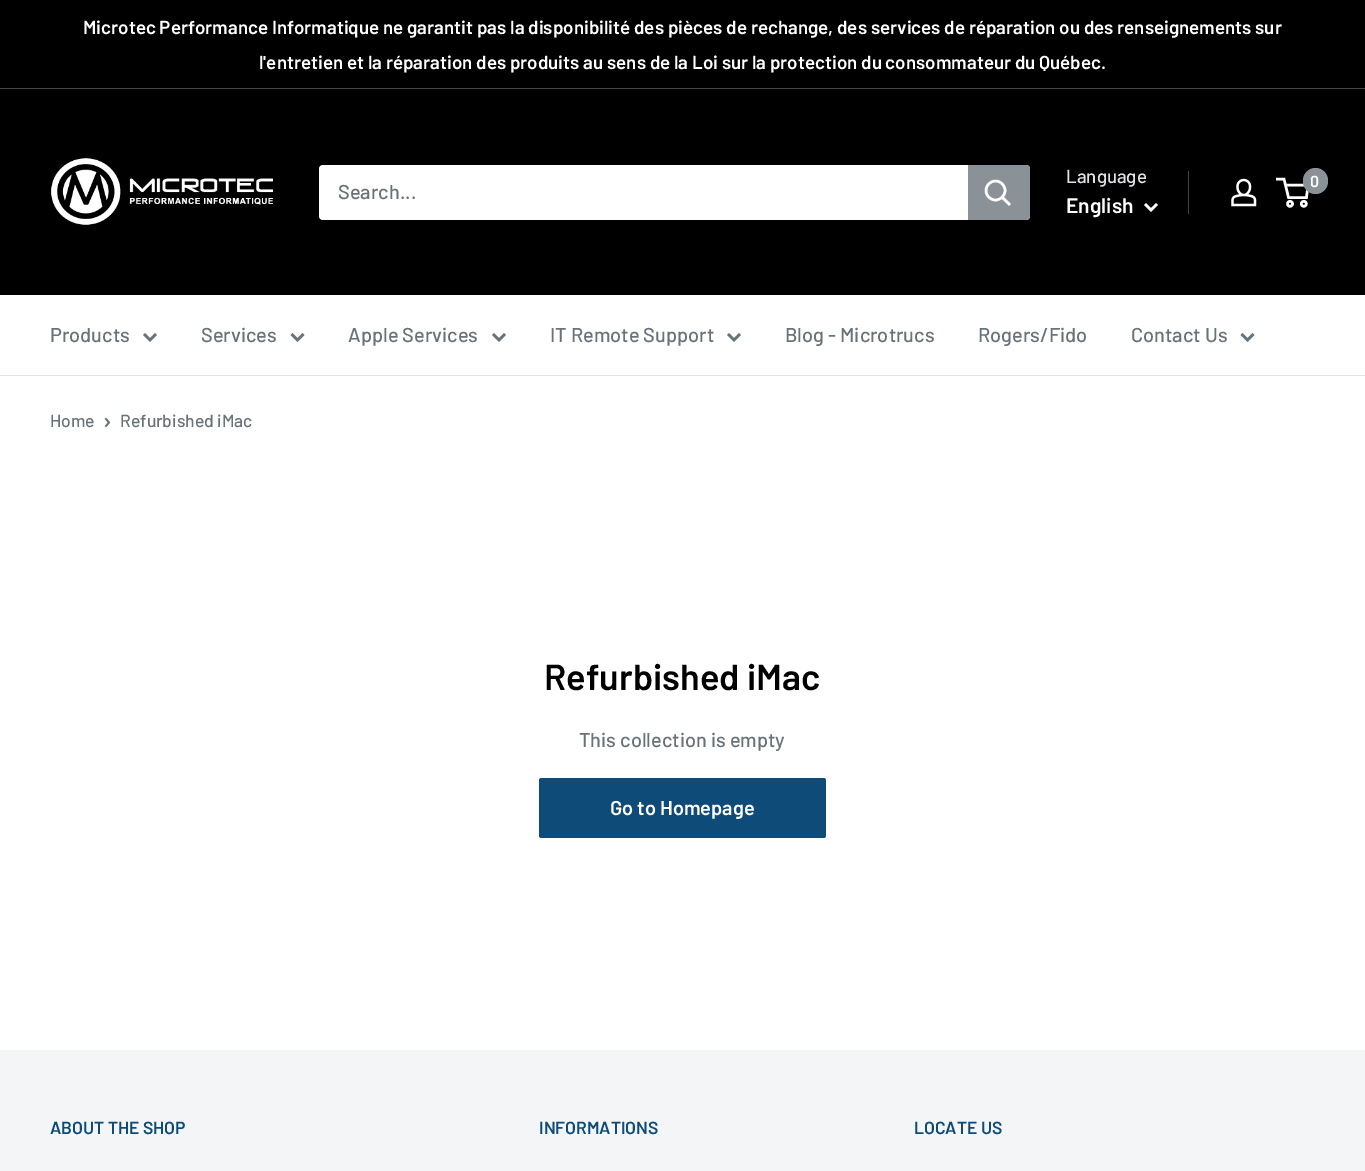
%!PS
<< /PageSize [1365 1171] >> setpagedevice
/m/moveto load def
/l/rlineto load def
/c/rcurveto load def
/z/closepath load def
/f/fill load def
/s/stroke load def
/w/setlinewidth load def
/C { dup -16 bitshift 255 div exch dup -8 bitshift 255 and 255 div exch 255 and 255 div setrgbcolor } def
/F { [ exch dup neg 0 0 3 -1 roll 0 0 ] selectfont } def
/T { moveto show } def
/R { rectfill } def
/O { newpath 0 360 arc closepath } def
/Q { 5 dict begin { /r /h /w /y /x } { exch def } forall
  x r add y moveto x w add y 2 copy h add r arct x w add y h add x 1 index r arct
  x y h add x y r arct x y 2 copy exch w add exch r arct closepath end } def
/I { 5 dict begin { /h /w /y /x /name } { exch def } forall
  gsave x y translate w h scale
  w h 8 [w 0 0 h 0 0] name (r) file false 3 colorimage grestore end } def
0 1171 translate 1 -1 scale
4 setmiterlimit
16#FFFFFF C
0 0 1365 1171 R
16#000000 C
0 0 1365 88 R
16#444444 C
0 88 1365 1 R
/Barlow-SemiBold 18.75 F
16#FFFFFF C
(Microtec Performance Informatique ne garantit pas la disponibilité des pièces de rechange, des services de réparation ou des renseignements sur) 83 34 T
(l'entretien et la réparation des produits au sens de la Loi sur la protection du consommateur du Québec.) 259 69 T
16#000000 C
0 89 1365 206 R
(1.rgb) 51 158 222 67 I
16#FFFFFF C
319 165 711 55 4 Q f
/Barlow-Medium 20 F
16#677279 C
(Search...) 338 199 T
16#8A9297 C
968 165 m 58 0 l 2 0 4 2 4 4 c 0 47 l 0 2 -2 4 -4 4 c -58 0 l z f
16#FFFFFF C
2.5 w
2 setlinecap
1009 204 m -6.5 -6.5 l s
0 setlinecap
995.5 190.5 9.5 O s
/Barlow-Medium 18.75 F
16#E1E3E4 C
(Language) 1066 183 T
/Barlow-SemiBold 21 F
16#FFFFFF C
(English) 1066 213 T
2 setlinecap
1156 205 m -5 5 l -5 -5 l s
16#444444 C
1188 171 1 43 R
(2.rgb) 1231 178 26 29 I
16#FFFFFF C
0 setlinecap
1290 203.8 2.5 O s
1303.8 203.8 2.5 O s
1285.5 185 m 22.5 0 l -1.5 12.5 l -18 0 l -4.5 -18.5 l -8 0 l s
16#8A9297 C
1303 168 25 26 12.5 Q f
/Barlow-SemiBold 16 F
16#FFFFFF C
(0) 1310 187 T
16#E1E3E4 C
0 375 1365 1 R
/Barlow-Medium 20 F
16#677279 C
(Products) 50 342 T
2 setlinecap
155 335 m -5 5 l -5 -5 l s
(Services) 201 342 T
302.5 335 m -5 5 l -5 -5 l s
(Apple Services) 348 342 T
504 335 m -5 5 l -5 -5 l s
(IT Remote Support) 550 342 T
739 335 m -5 5 l -5 -5 l s
(Blog - Microtrucs) 785 342 T
(Rogers/Fido) 978 342 T
(Contact Us) 1131 342 T
1252.5 335 m -5 5 l -5 -5 l s
/Barlow-Medium 17.5 F
(Home) 50 427 T
1.7 w
106 419 m 3 3.5 l -3 3.5 l s
(Refurbished iMac) 120 427 T
/Barlow-SemiBold 36.25 F
16#000000 C
(Refurbished iMac) 544 690 T
/Barlow-Medium 20 F
16#677279 C
(This collection is empty) 579 747 T
16#0E4B79 C
539 778 287 60 2.5 Q f
/Barlow-SemiBold 20 F
16#FFFFFF C
(Go to Homepage) 610 815 T
16#F3F5F6 C
0 1050 1365 121 R
/Barlow-SemiBold 17.5 F
16#0E4B79 C
(ABOUT THE SHOP) 50 1134 T
(INFORMATIONS) 539 1134 T
(LOCATE US) 914 1134 T
showpage
